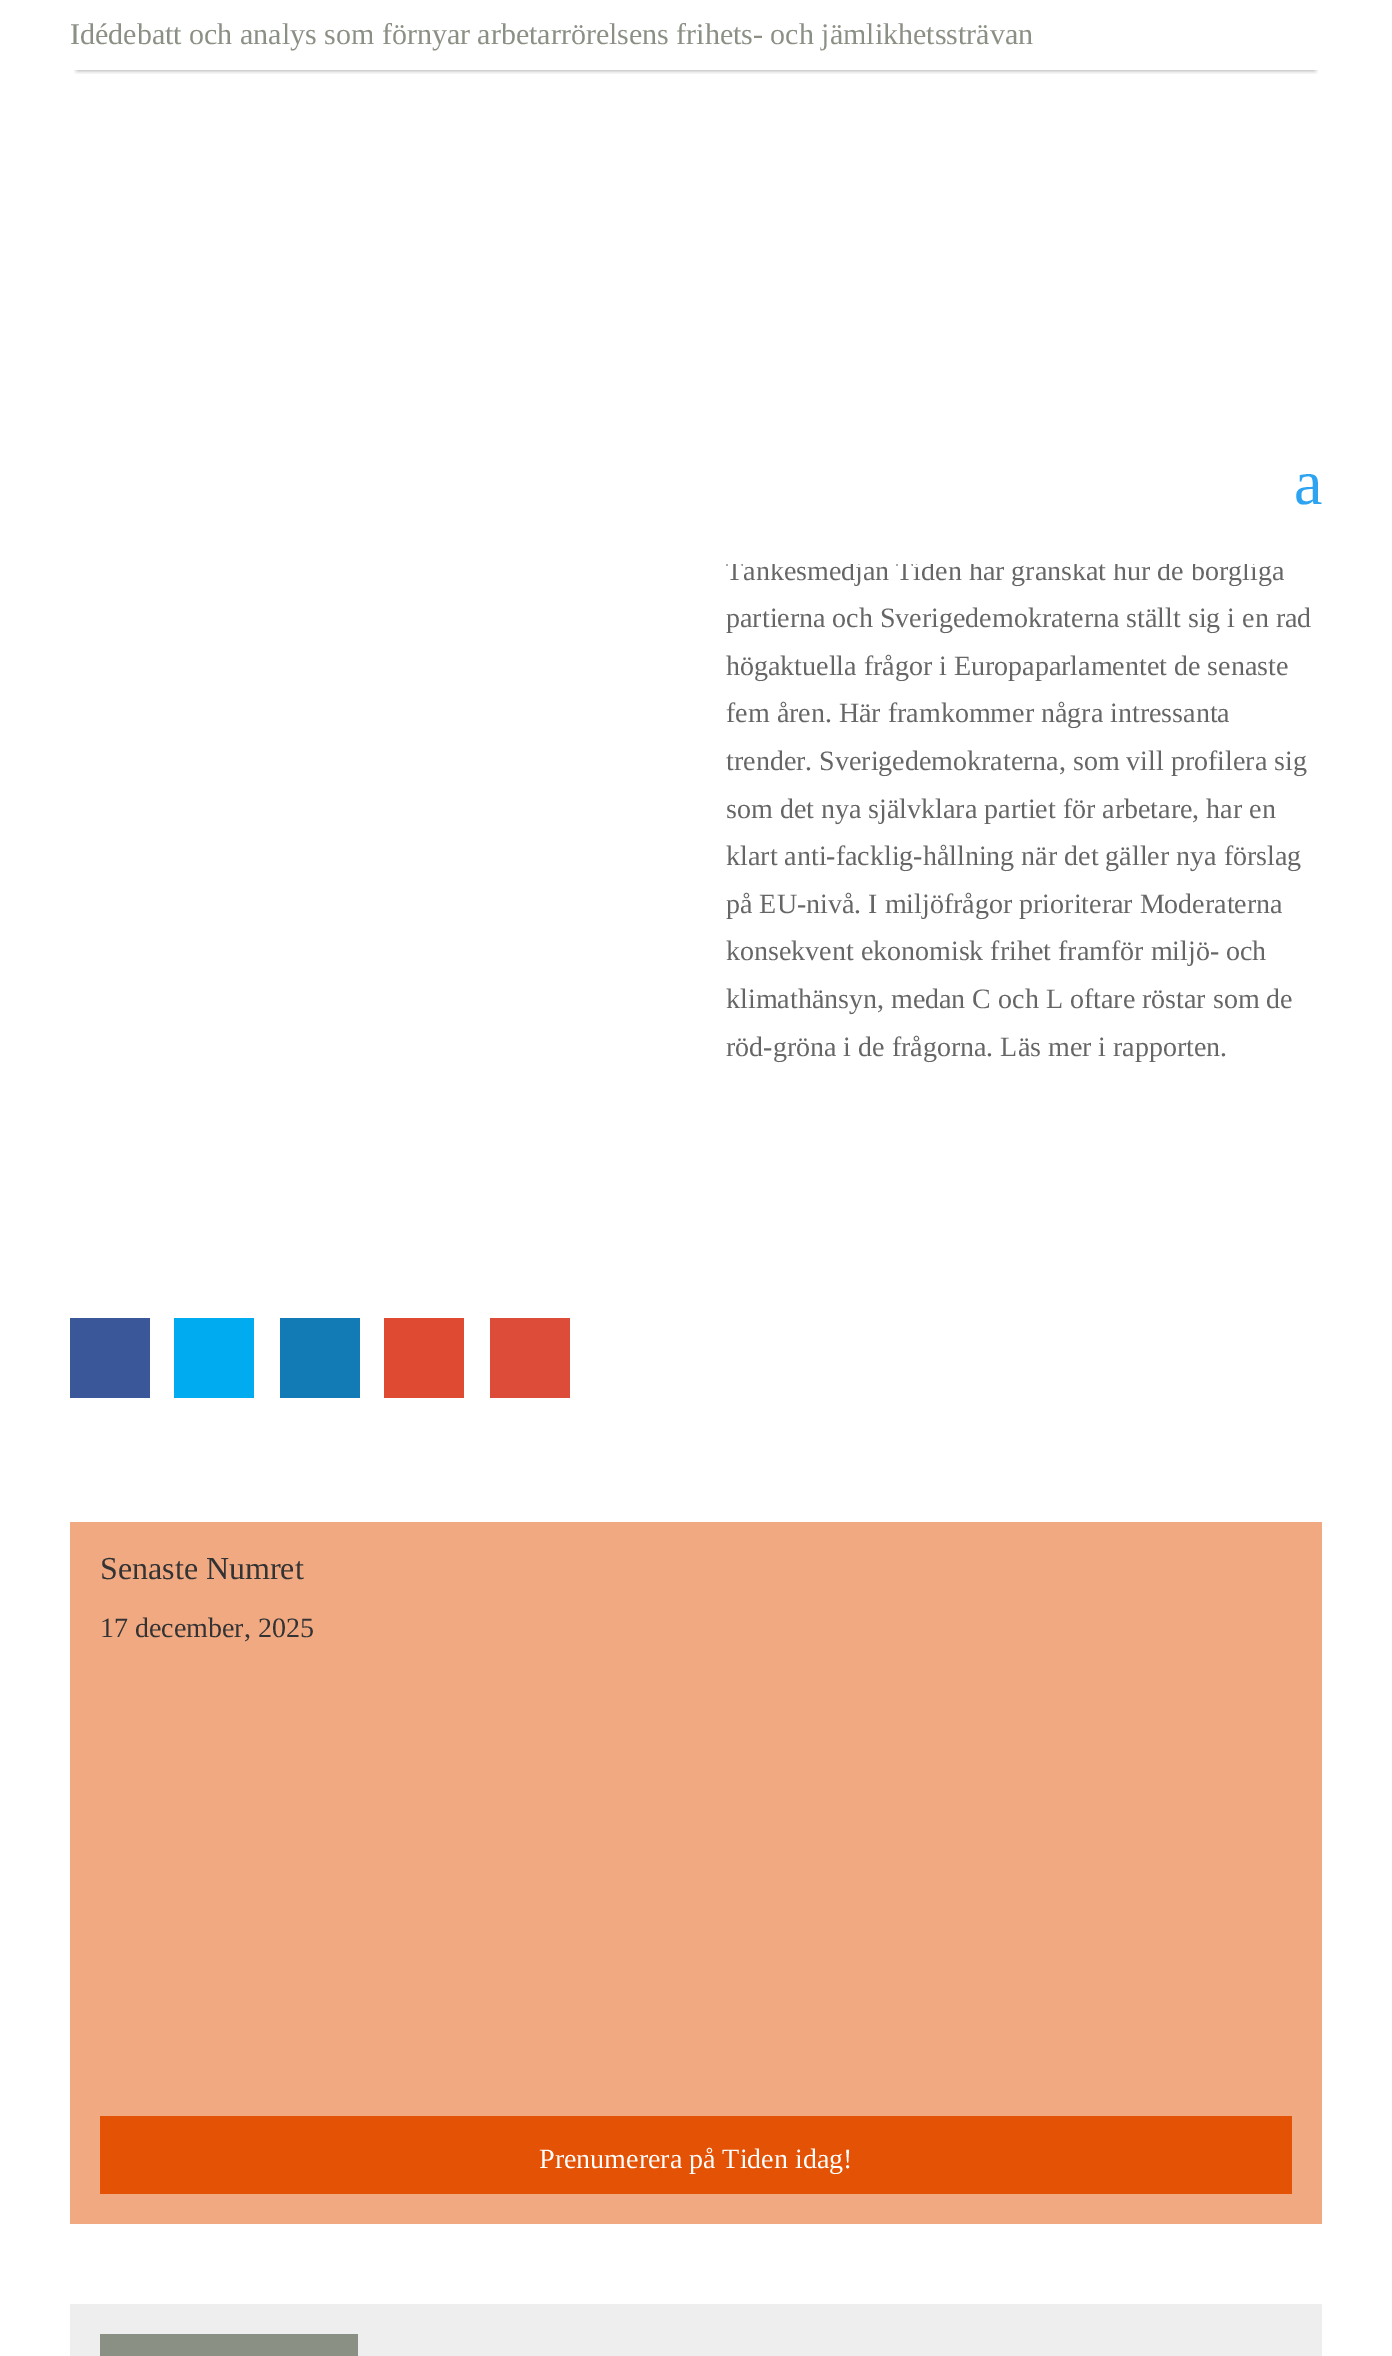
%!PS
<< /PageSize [1392 2356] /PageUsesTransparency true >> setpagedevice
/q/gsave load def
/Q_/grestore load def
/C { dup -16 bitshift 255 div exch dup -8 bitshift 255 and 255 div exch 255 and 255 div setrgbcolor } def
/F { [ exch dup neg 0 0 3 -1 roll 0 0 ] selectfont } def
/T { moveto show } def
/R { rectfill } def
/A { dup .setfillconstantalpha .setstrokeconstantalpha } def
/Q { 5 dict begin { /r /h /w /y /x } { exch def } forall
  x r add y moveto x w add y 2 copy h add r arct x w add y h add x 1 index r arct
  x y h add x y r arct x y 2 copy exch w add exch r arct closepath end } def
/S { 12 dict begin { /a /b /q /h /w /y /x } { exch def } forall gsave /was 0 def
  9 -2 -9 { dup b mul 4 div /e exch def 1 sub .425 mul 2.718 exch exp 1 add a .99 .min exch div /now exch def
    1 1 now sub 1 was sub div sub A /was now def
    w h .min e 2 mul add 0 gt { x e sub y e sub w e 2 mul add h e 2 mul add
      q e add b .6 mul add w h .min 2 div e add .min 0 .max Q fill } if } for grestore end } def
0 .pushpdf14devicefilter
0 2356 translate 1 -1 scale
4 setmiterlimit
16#FFFFFF C
0 0 1392 2356 R
/LiberationSerif-Regular 28 F
16#666666 C
(Tankesmedjan Tiden har granskat hur de borgliga) 726 580 T
16#FFFFFF C
726 560 530 4 R
q
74 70 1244 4 rectclip
16#000000 C
78 14 1236 54 0 3 1 S
Q_
/LiberationSerif-Regular 30 F
16#8B9085 C
(Idédebatt och analys som förnyar arbetarrörelsens frihets- och jämlikhetssträvan) 70 44 T
/LiberationSerif-Regular 64 F
16#2EA3F2 C
(a) 1294 504 T
/LiberationSerif-Regular 28 F
16#666666 C
(partierna och Sverigedemokraterna ställt sig i en rad) 726 627 T
(högaktuella frågor i Europaparlamentet de senaste) 726 675 T
(fem åren. Här framkommer några intressanta) 726 722 T
(trender. Sverigedemokraterna, som vill profilera sig) 726 770 T
(som det nya självklara partiet för arbetare, har en) 726 818 T
(klart anti-facklig-hållning när det gäller nya förslag) 726 865 T
(på EU-nivå. I miljöfrågor prioriterar Moderaterna) 726 913 T
(konsekvent ekonomisk frihet framför miljö- och) 726 960 T
(klimathänsyn, medan C och L oftare röstar som de) 726 1008 T
(röd-gröna i de frågorna. Läs mer i rapporten.) 726 1056 T
16#3A579A C
70 1318 80 80 R
16#00ABF0 C
174 1318 80 80 R
16#127BB6 C
280 1318 80 80 R
16#DF4A32 C
384 1318 80 80 R
16#DD4B39 C
490 1318 80 80 R
16#F1A982 C
70 1522 1252 702 R
/LiberationSerif-Regular 32 F
16#333333 C
(Senaste Numret) 100 1579 T
/LiberationSerif-Regular 28 F
(17 december, 2025) 100 1637 T
16#E35205 C
100 2116 1192 78 R
16#FFFFFF C
(Prenumerera på Tiden idag!) 539 2168 T
16#EEEEEE C
70 2304 1252 52 R
16#8B9085 C
100 2334 258 22 R
.poppdf14devicefilter showpage
